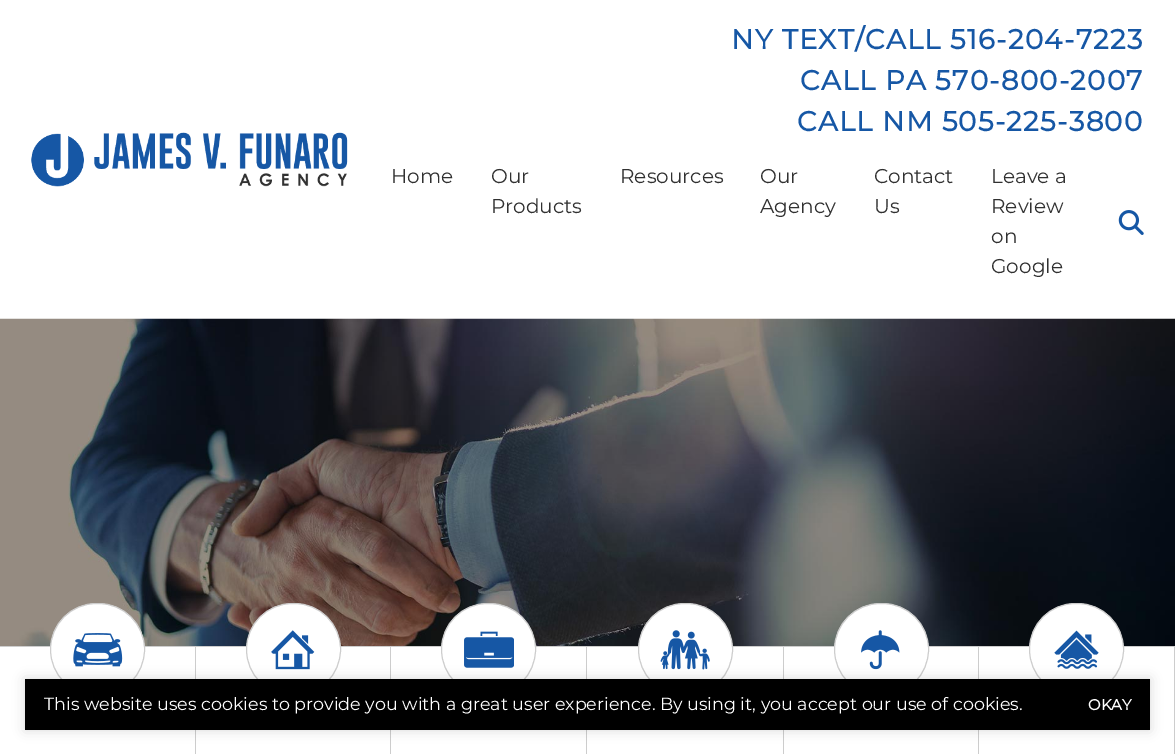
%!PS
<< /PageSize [1175 754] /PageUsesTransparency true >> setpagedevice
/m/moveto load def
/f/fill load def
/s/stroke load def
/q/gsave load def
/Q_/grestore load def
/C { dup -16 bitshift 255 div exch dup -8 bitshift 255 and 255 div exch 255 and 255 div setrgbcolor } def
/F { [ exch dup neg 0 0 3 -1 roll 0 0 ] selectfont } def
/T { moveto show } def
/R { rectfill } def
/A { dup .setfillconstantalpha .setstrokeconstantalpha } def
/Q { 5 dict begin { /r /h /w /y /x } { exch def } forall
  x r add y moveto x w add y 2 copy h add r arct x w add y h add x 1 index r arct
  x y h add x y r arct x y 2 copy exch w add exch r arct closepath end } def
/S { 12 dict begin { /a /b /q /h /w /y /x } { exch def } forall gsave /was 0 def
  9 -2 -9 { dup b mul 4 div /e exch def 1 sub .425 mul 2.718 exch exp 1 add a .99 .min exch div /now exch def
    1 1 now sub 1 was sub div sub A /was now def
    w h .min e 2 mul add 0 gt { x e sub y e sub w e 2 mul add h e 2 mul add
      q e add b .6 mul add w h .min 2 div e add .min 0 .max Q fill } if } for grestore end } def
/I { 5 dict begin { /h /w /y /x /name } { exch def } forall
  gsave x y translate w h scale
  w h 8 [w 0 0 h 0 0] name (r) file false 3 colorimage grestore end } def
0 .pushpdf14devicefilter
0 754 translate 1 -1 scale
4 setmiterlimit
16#FFFFFF C
0 0 1175 754 R
(1.rgb) 31 132 317 55 I
/Montserrat-Bold 27.5 F
16#1657A5 C
731 49 m 1.25 0 (NY TEXT/CALL 516-204-7223) ashow
800 90 m 1.25 0 (CALL PA 570-800-2007) ashow
797 131 m 1.25 0 (CALL NM 505-225-3800) ashow
/Montserrat-Thin 20 F
16#313131 C
(Home) 391 183 T
(Our) 491 183 T
(Products) 491 213 T
(Resources) 620 183 T
(Our) 760 183 T
(Agency) 760 213 T
(Contact) 874 183 T
(Us) 874 213 T
(Leave a) 991 183 T
(Review) 991 213 T
(on) 991 243 T
(Google) 991 273 T
(2.rgb) 1118 210 26 25 I
(3.rgb) 0 318 1175 328 I
16#CDCDCD C
0 646 1175 1 R
195 646 1 108 R
16#FFFFFF C
50.5 603.5 94 92 46 Q q f Q_
16#CDCDCD C
s
(4.rgb) 73 633 50 34 I
390 646 1 108 R
16#FFFFFF C
246.5 603.5 94 92 46 Q q f Q_
16#CDCDCD C
s
(5.rgb) 271 630 44 40 I
586 646 1 108 R
16#FFFFFF C
441.5 603.5 94 92 46 Q q f Q_
16#CDCDCD C
s
(6.rgb) 464 631 50 37 I
783 646 1 108 R
16#FFFFFF C
638.5 603.5 94 92 46 Q q f Q_
16#CDCDCD C
s
(7.rgb) 660 630 50 40 I
978 646 1 108 R
16#FFFFFF C
834.5 603.5 94 92 46 Q q f Q_
16#CDCDCD C
s
(8.rgb) 861 630 39 40 I
1174 646 1 108 R
16#FFFFFF C
1029.5 603.5 94 92 46 Q q f Q_
16#CDCDCD C
s
(9.rgb) 1054 630 45 39 I
16#000000 C
25 679 1125 51 0 6 .15 S
25 679 1125 51 R
/Montserrat-Thin 17.5 F
16#FFFFFF C
(This website uses cookies to provide you with a great user experience. By using it, you accept our use of cookies.) 44 710 T
/Montserrat-Bold 15 F
(OKAY) 1088 710 T
.poppdf14devicefilter showpage
